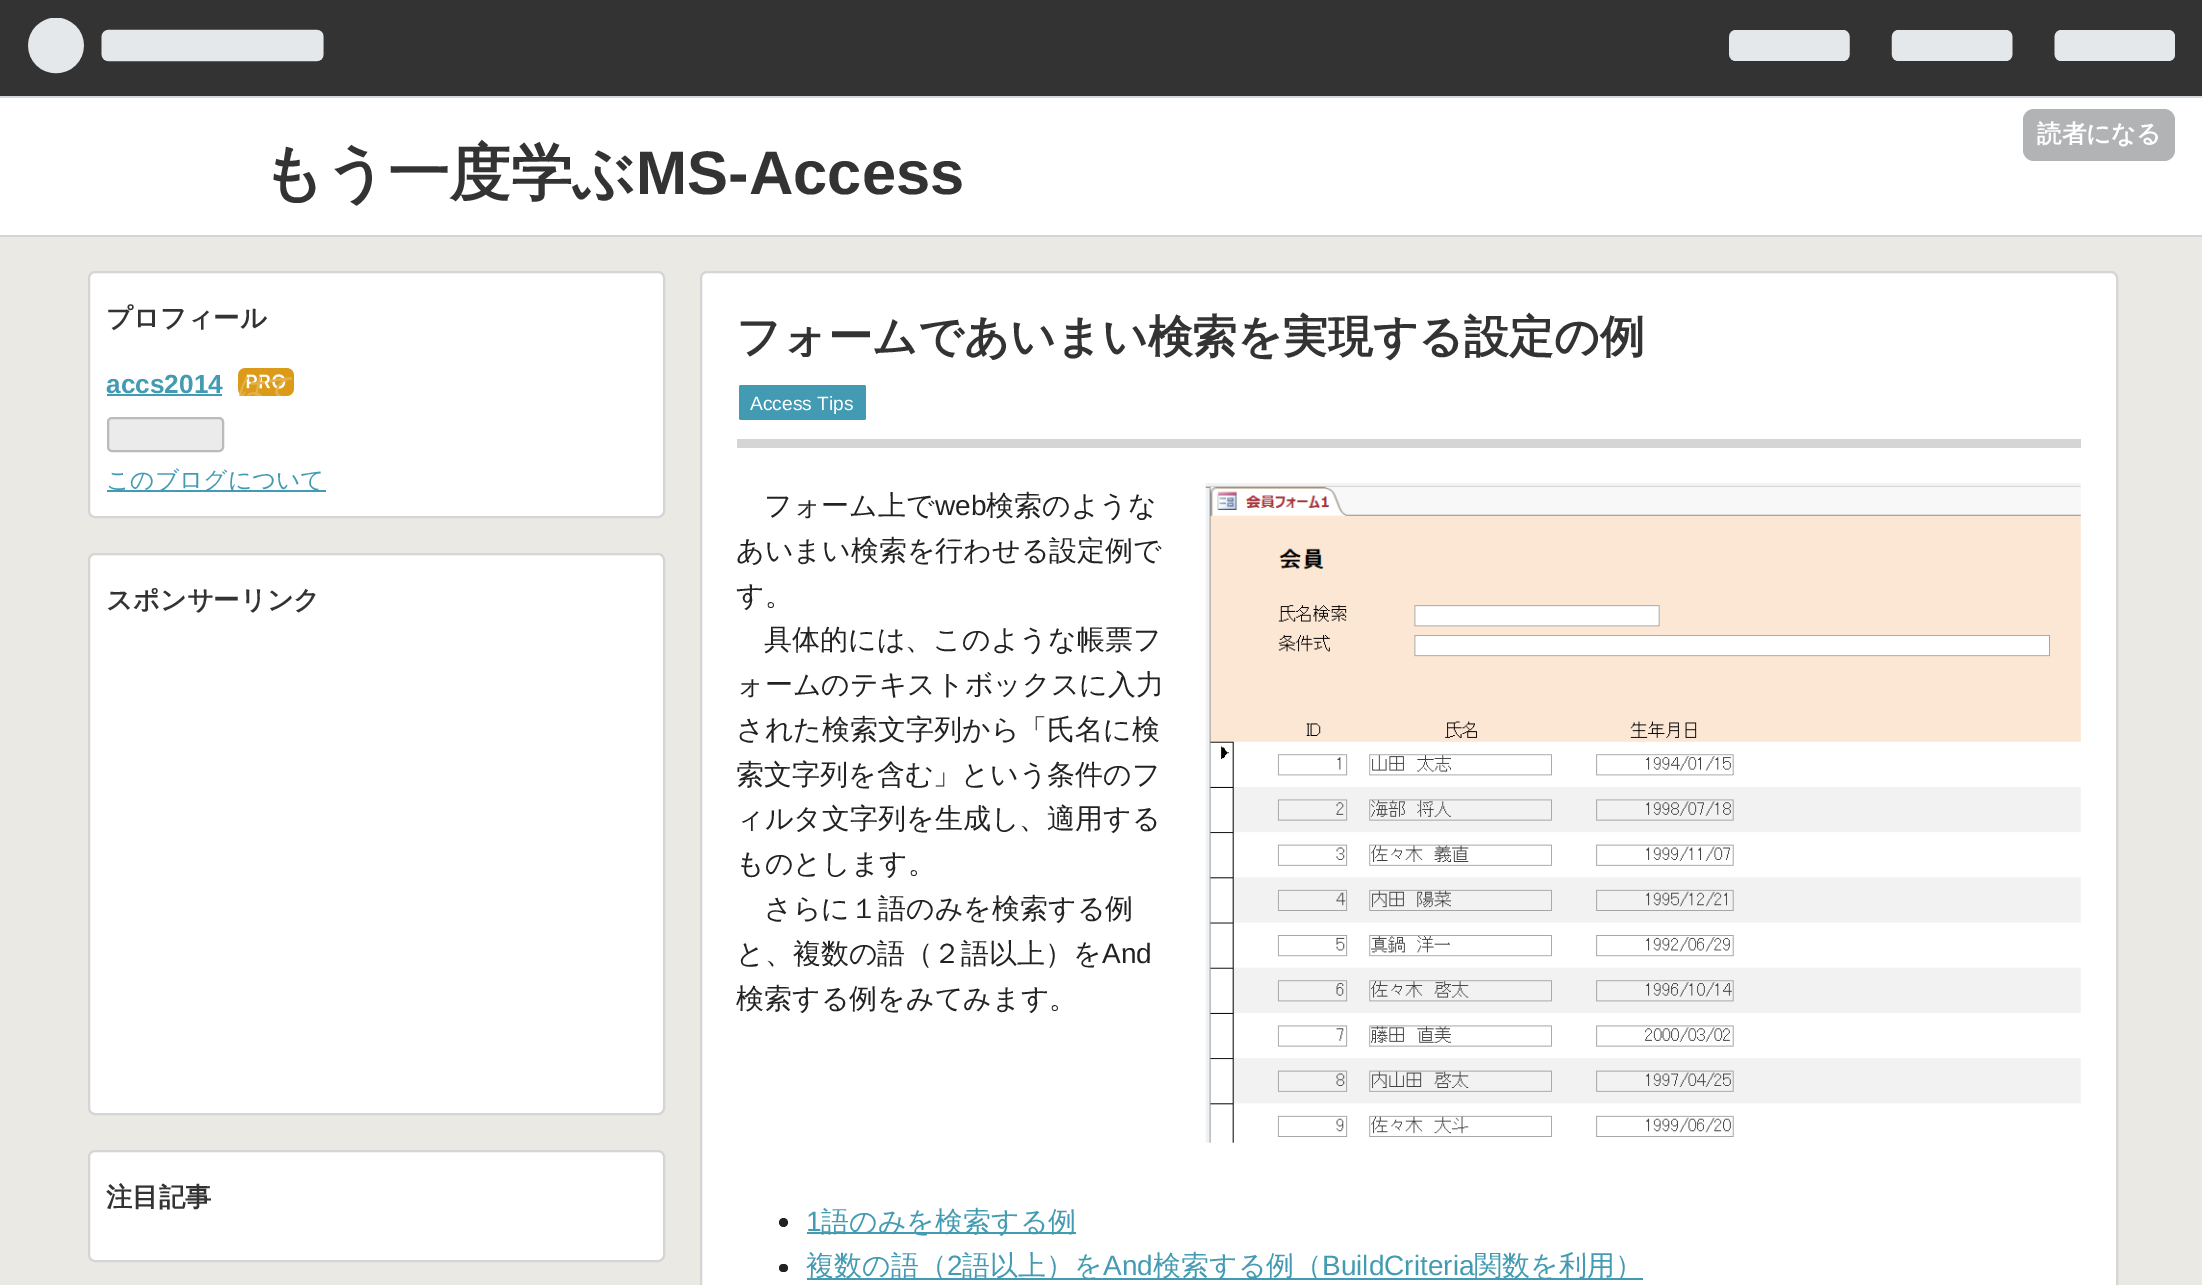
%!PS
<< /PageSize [2202 1285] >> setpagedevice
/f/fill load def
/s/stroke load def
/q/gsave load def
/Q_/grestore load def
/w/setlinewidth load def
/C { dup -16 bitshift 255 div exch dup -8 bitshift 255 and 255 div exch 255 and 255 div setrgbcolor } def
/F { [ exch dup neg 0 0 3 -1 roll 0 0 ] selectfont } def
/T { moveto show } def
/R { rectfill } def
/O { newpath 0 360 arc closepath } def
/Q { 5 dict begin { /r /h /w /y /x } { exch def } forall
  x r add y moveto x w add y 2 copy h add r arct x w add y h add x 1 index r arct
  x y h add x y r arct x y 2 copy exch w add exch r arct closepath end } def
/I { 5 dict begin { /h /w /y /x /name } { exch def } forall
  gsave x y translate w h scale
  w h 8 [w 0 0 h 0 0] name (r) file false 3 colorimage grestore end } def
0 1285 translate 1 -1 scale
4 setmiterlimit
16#EBE9E3 C
0 0 2202 1285 R
16#333333 C
0 0 2202 96 R
16#D2D8DD C
0 96 2202 2 R
(1.rgb) 28 18 296 56 I
(2.rgb) 1729 30 446 31 I
16#FFFFFF C
0 98 2202 137 R
16#B1B3B5 C
2023 109 152 52 11 Q f
/WenQuanYiZenHei-Bold 24.5 F
16#FFFFFF C
(読者になる) 2037 142 T
16#D5D5D5 C
0 235 2202 2 R
/WenQuanYiZenHei-Bold 61.5 F
16#333333 C
(もう一度学ぶ) 262 194 T
/LiberationSans-Bold 61.5 F
(MS-Access) 636 194 T
16#FFFFFF C
89 272 575 245 6 Q q f Q_
16#D5D5D5 C
2 w
s
/WenQuanYiZenHei-Bold 26.25 F
16#333333 C
(プロフィール) 106 327 T
/LiberationSans-Bold 26.25 F
16#429BB2 C
(accs2014) 106 393 T
107 394 115 2 R
(3.rgb) 238 368 56 28 I
q
238 368 56 28 rectclip
/WenQuanYiZenHei-BoldItalic 26.25 F
16#E3B049 C
(はて) 237 396 T
Q_
16#EBEBEB C
108 418 115 33 4 Q q f Q_
16#BBBBBB C
s
16#429BB2 C
107 490 219 2 R
/WenQuanYiZenHei-Medium 23.75 F
(このブログについて) 106 488 T
16#FFFFFF C
89 554 575 560 6 Q q f Q_
16#D5D5D5 C
s
/WenQuanYiZenHei-Bold 26.25 F
16#333333 C
(スポンサーリンク) 106 609 T
16#FFFFFF C
89 1151 575 110 6 Q q f Q_
16#D5D5D5 C
s
16#333333 C
(注目記事) 106 1206 T
16#FFFFFF C
702 273 1414 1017 5 Q f
16#D5D5D5 C
701 272 1416 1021 6 Q s
737 439 1344 9 R
/WenQuanYiZenHei-Bold 44.8 F
16#333333 C
(フォームであいまい検索を実現する設定の例) 736 352 T
16#429BB2 C
739 385 127 35 2 Q f
/LiberationSans-Regular 19.25 F
16#FFFFFF C
(Access Tips) 750 410 T
/WenQuanYiZenHei-Medium 28 F
16#222222 C
(フォーム上で) 764 515 T
/LiberationSans-Regular 28 F
(web) 935 515 T
/WenQuanYiZenHei-Medium 28 F
(検索のような) 986 515 T
(あいまい検索を行わせる設定例で) 736 560 T
(す。) 736 605 T
(具体的には、このような帳票フ) 764 649 T
(ォームのテキストボックスに入力) 736 694 T
(された検索文字列から「氏名に検) 736 739 T
(索文字列を含む」という条件のフ) 736 784 T
(ィルタ文字列を生成し、適用する) 736 828 T
(ものとします。) 736 873 T
(さらに１語のみを検索する例) 764 918 T
(と、複数の語（２語以上）を) 736 963 T
/LiberationSans-Regular 28 F
(And) 1102 963 T
/WenQuanYiZenHei-Medium 28 F
(検索する例をみてみます。) 736 1008 T
(4.rgb) 1205 483 876 660 I
783.5 1222.5 4.5 O f
/LiberationSans-Regular 28 F
16#429BB2 C
(1) 806 1231 T
807 1232 269 2 R
/WenQuanYiZenHei-Medium 28 F
(語のみを検索する例) 821 1231 T
16#222222 C
779 1264 9 8 4 Q f
16#429BB2 C
807 1278 836 2 R
(複数の語（) 806 1275 T
/LiberationSans-Regular 28 F
(2) 947 1275 T
/WenQuanYiZenHei-Medium 28 F
(語以上）を) 962 1275 T
/LiberationSans-Regular 28 F
(And) 1103 1275 T
/WenQuanYiZenHei-Medium 28 F
(検索する例（) 1153 1275 T
/LiberationSans-Regular 28 F
(BuildCriteria) 1322 1275 T
/WenQuanYiZenHei-Medium 28 F
(関数を利用）) 1474 1275 T
showpage
